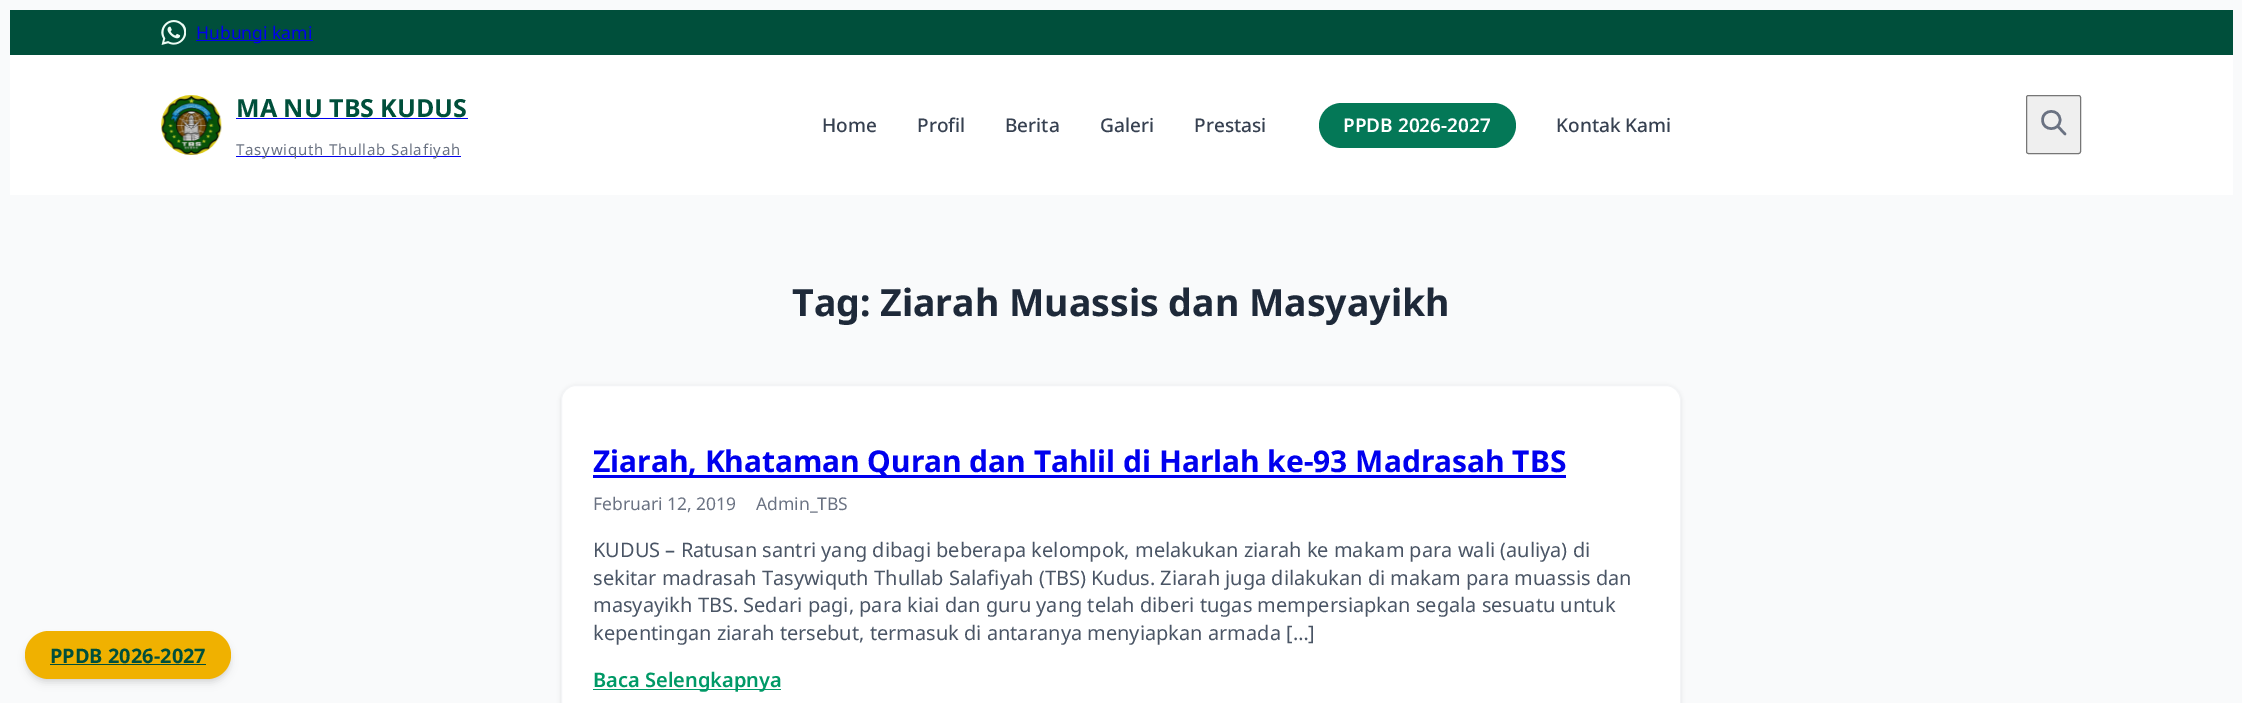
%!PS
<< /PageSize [2242 703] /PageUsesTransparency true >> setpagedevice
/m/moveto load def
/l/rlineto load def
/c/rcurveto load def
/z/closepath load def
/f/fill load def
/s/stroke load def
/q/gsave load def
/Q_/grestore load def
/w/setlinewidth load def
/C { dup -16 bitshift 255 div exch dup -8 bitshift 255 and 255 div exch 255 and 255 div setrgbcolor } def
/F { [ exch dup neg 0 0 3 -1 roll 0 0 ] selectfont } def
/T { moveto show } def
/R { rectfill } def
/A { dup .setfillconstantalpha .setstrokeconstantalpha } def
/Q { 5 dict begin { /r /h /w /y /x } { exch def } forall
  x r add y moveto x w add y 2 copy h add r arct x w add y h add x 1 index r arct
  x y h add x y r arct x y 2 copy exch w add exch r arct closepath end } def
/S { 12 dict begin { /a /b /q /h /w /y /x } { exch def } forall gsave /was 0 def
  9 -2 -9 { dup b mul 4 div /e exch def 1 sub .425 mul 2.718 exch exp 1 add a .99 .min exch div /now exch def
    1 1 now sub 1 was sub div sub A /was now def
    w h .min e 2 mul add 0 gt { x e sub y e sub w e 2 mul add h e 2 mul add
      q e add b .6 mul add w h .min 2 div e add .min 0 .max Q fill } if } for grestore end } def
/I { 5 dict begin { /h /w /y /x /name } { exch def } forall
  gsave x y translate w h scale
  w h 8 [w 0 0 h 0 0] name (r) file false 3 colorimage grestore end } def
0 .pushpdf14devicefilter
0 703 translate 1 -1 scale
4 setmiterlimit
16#F9FAFB C
0 0 2242 703 R
16#004F3B C
10 10 2223 45 R
(1.rgb) 161 20 25 25 I
16#0000EE C
196 40 117 1 R
/NotoSans-Regular 17.5 F
(Hubungi kami) 196 39 T
16#FFFFFF C
10 55 2223 140 R
(2.rgb) 161 95 61 60 I
/NotoSans-Bold 25 F
16#004F3B C
(MA NU TBS KUDUS) 236 117 T
16#0000EE C
236 118 232 1 R
236 156 225 1 R
/NotoSans-Regular 15 F
16#6A7282 C
236 155 m .75 0 (Tasywiquth Thullab Salafiyah) ashow
/NotoSans-Medium 19 F
16#374151 C
(Home) 822 132 T
(Profil) 917 132 T
(Berita) 1005 132 T
(Galeri) 1100 132 T
(Prestasi) 1194 132 T
16#047857 C
1319 103 197 45 22.5 Q f
/NotoSans-SemiBold 19 F
16#FFFFFF C
(PPDB 2026-2027) 1343 132 T
/NotoSans-Medium 19 F
16#374151 C
(Kontak Kami) 1556 132 T
16#EFEFEF C
2026.5 95.5 54 58 2 Q q f Q_
16#767676 C
s
16#6A7282 C
2.5 w
1 setlinecap
1 setlinejoin
2065 134 m -7.5 -8 l 2060 120 m 0 11.5 -17.5 11.5 -17.5 0 c 0 -11.5 17.5 -11.5 17.5 0 c z s
16#000000 C
28 636 201 43 21.5 2.5 .1 S
26 638 204 45 22.5 4 .1 S
16#F0B100 C
25 631 206 48 24 Q f
/NotoSans-Bold 20 F
16#004F3B C
(PPDB 2026-2027) 50 663 T
50 664 156 1 R
/NotoSans-Bold 37.5 F
16#1E2939 C
(Tag: Ziarah Muassis dan Masyayikh) 792 316 T
16#000000 C
561 386 1120 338 15 2 .1 S
16#FFFFFF C
561.5 385.5 1119 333 14.5 Q q f Q_
16#F3F4F6 C
1 w
0 setlinecap
0 setlinejoin
s
16#0000EE C
593 475 973 3 R
/NotoSans-Bold 30 F
(Ziarah, Khataman Quran dan Tahlil di Harlah ke-93 Madrasah TBS) 593 472 T
/NotoSans-Regular 17.5 F
16#6A7282 C
(Februari 12, 2019) 593 510 T
(Admin_TBS) 756 510 T
/NotoSans-Regular 20 F
16#4A5565 C
(KUDUS – Ratusan santri yang dibagi beberapa kelompok, melakukan ziarah ke makam para wali \(auliya\) di) 593 557 T
(sekitar madrasah Tasywiquth Thullab Salafiyah \(TBS\) Kudus. Ziarah juga dilakukan di makam para muassis dan) 593 585 T
(masyayikh TBS. Sedari pagi, para kiai dan guru yang telah diberi tugas mempersiapkan segala sesuatu untuk) 593 612 T
(kepentingan ziarah tersebut, termasuk di antaranya menyiapkan armada […]) 593 640 T
16#009966 C
593 689 188 1 R
/NotoSans-SemiBold 20 F
(Baca Selengkapnya) 593 687 T
.poppdf14devicefilter showpage
